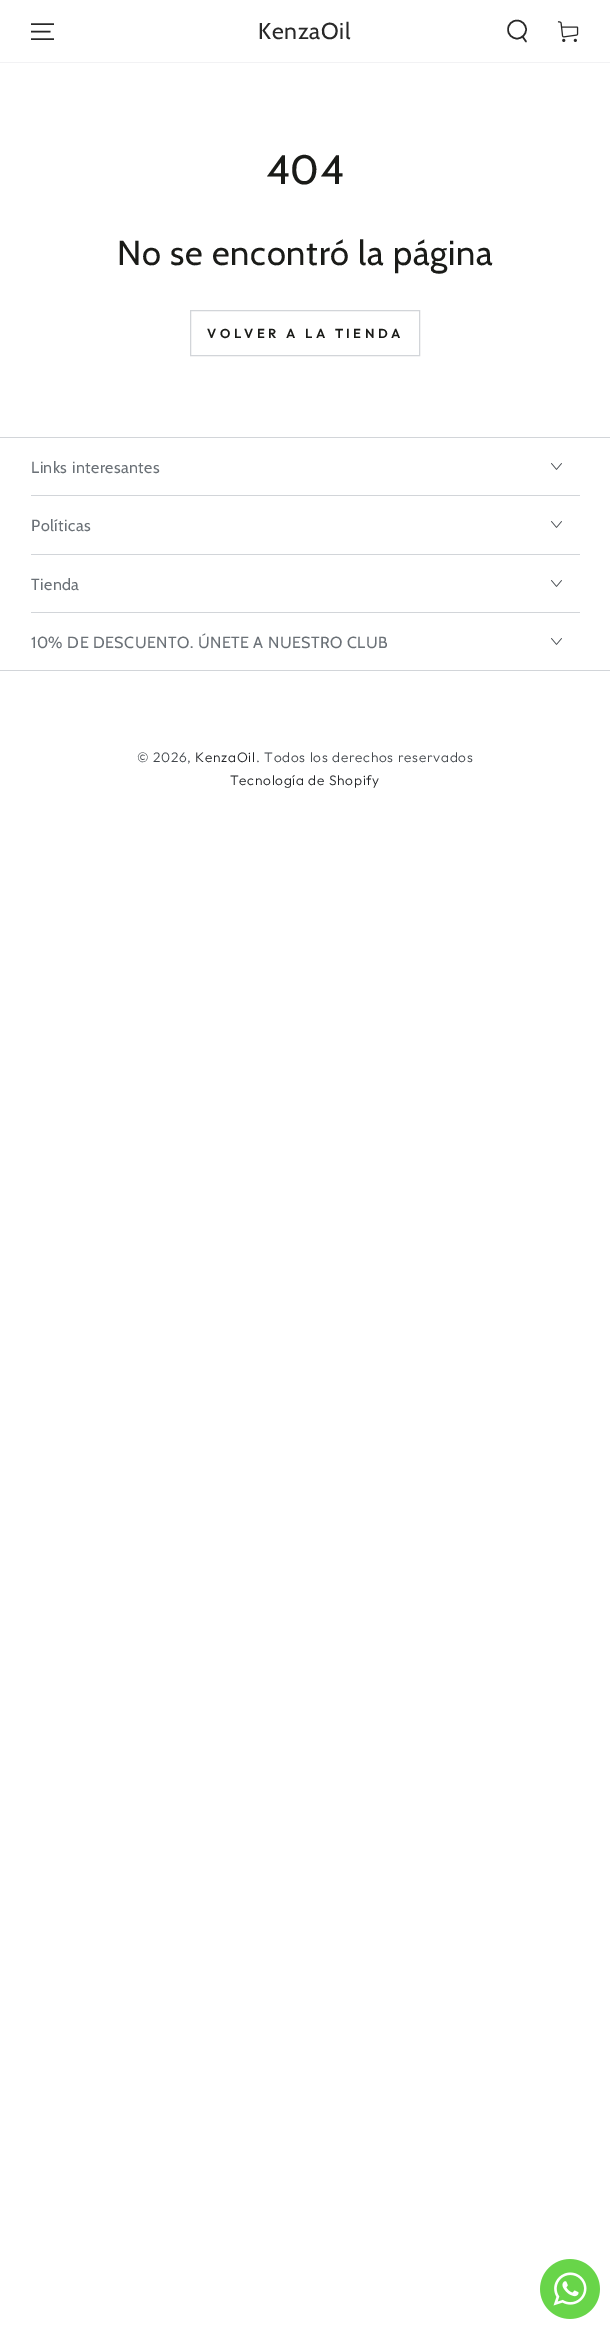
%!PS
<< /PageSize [610 2329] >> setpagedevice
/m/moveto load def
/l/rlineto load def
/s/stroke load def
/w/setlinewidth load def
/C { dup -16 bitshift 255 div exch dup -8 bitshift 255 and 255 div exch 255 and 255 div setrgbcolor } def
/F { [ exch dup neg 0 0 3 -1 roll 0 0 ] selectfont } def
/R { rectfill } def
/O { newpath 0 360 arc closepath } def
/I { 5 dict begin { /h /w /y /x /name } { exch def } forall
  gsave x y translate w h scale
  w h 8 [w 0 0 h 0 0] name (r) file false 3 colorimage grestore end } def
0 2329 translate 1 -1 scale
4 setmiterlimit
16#FFFFFF C
0 0 610 2329 R
16#F2F2F4 C
0 62 610 1 R
16#282828 C
1.4 w
31 39 m 23 0 l 31 31.5 m 19.5 0 l 31 24 m 23 0 l s
/Cabin-Regular 23 F
258 39 m .7 0 (KenzaOil) ashow
1.5 w
517 29.5 9 O s
1 setlinecap
522.5 36.5 m 3.5 5 l s
(1.rgb) 557 21 22 21 I
/Cabin-Regular 41 F
16#1A1B18 C
266 184 m .7 0 (404) ashow
/Cabin-Regular 34.5 F
117 265 m .7 0 (No se encontró la página) ashow
16#D2D5D9 C
1 w
0 setlinecap
190.5 310.5 229 45 rectstroke
/Outfit-SemiBold 13 F
16#1A1B18 C
207 338 m 3.5 0 (VOLVER A LA TIENDA) ashow
16#D2D5D9 C
0 437 610 1 R
31 495 549 1 R
/Cabin-Regular 16.1 F
16#6B7177 C
31 473 m .45 0 (Links interesantes) ashow
(2.rgb) 551 463 11 7 I
16#D2D5D9 C
31 554 549 1 R
16#6B7177 C
31 531 m .45 0 (Políticas) ashow
(2.rgb) 551 521 11 7 I
16#D2D5D9 C
31 612 549 1 R
16#6B7177 C
31 590 m .45 0 (Tienda) ashow
(2.rgb) 551 580 11 7 I
31 648 m .45 0 (10% DE DESCUENTO. ÚNETE A NUESTRO CLUB) ashow
(2.rgb) 551 638 11 7 I
16#D2D5D9 C
0 670 610 1 R
/Outfit-Light 13.75 F
16#42474C C
137 762 m .7 0 (© 2026,) ashow
16#212326 C
195 762 m .7 0 (KenzaOil) ashow
16#42474C C
256 762 m .7 0 (. Todos los derechos reservados) ashow
16#212326 C
230 785 m .7 0 (Tecnología de Shopify) ashow
(3.rgb) 540 2259 60 60 I
showpage
